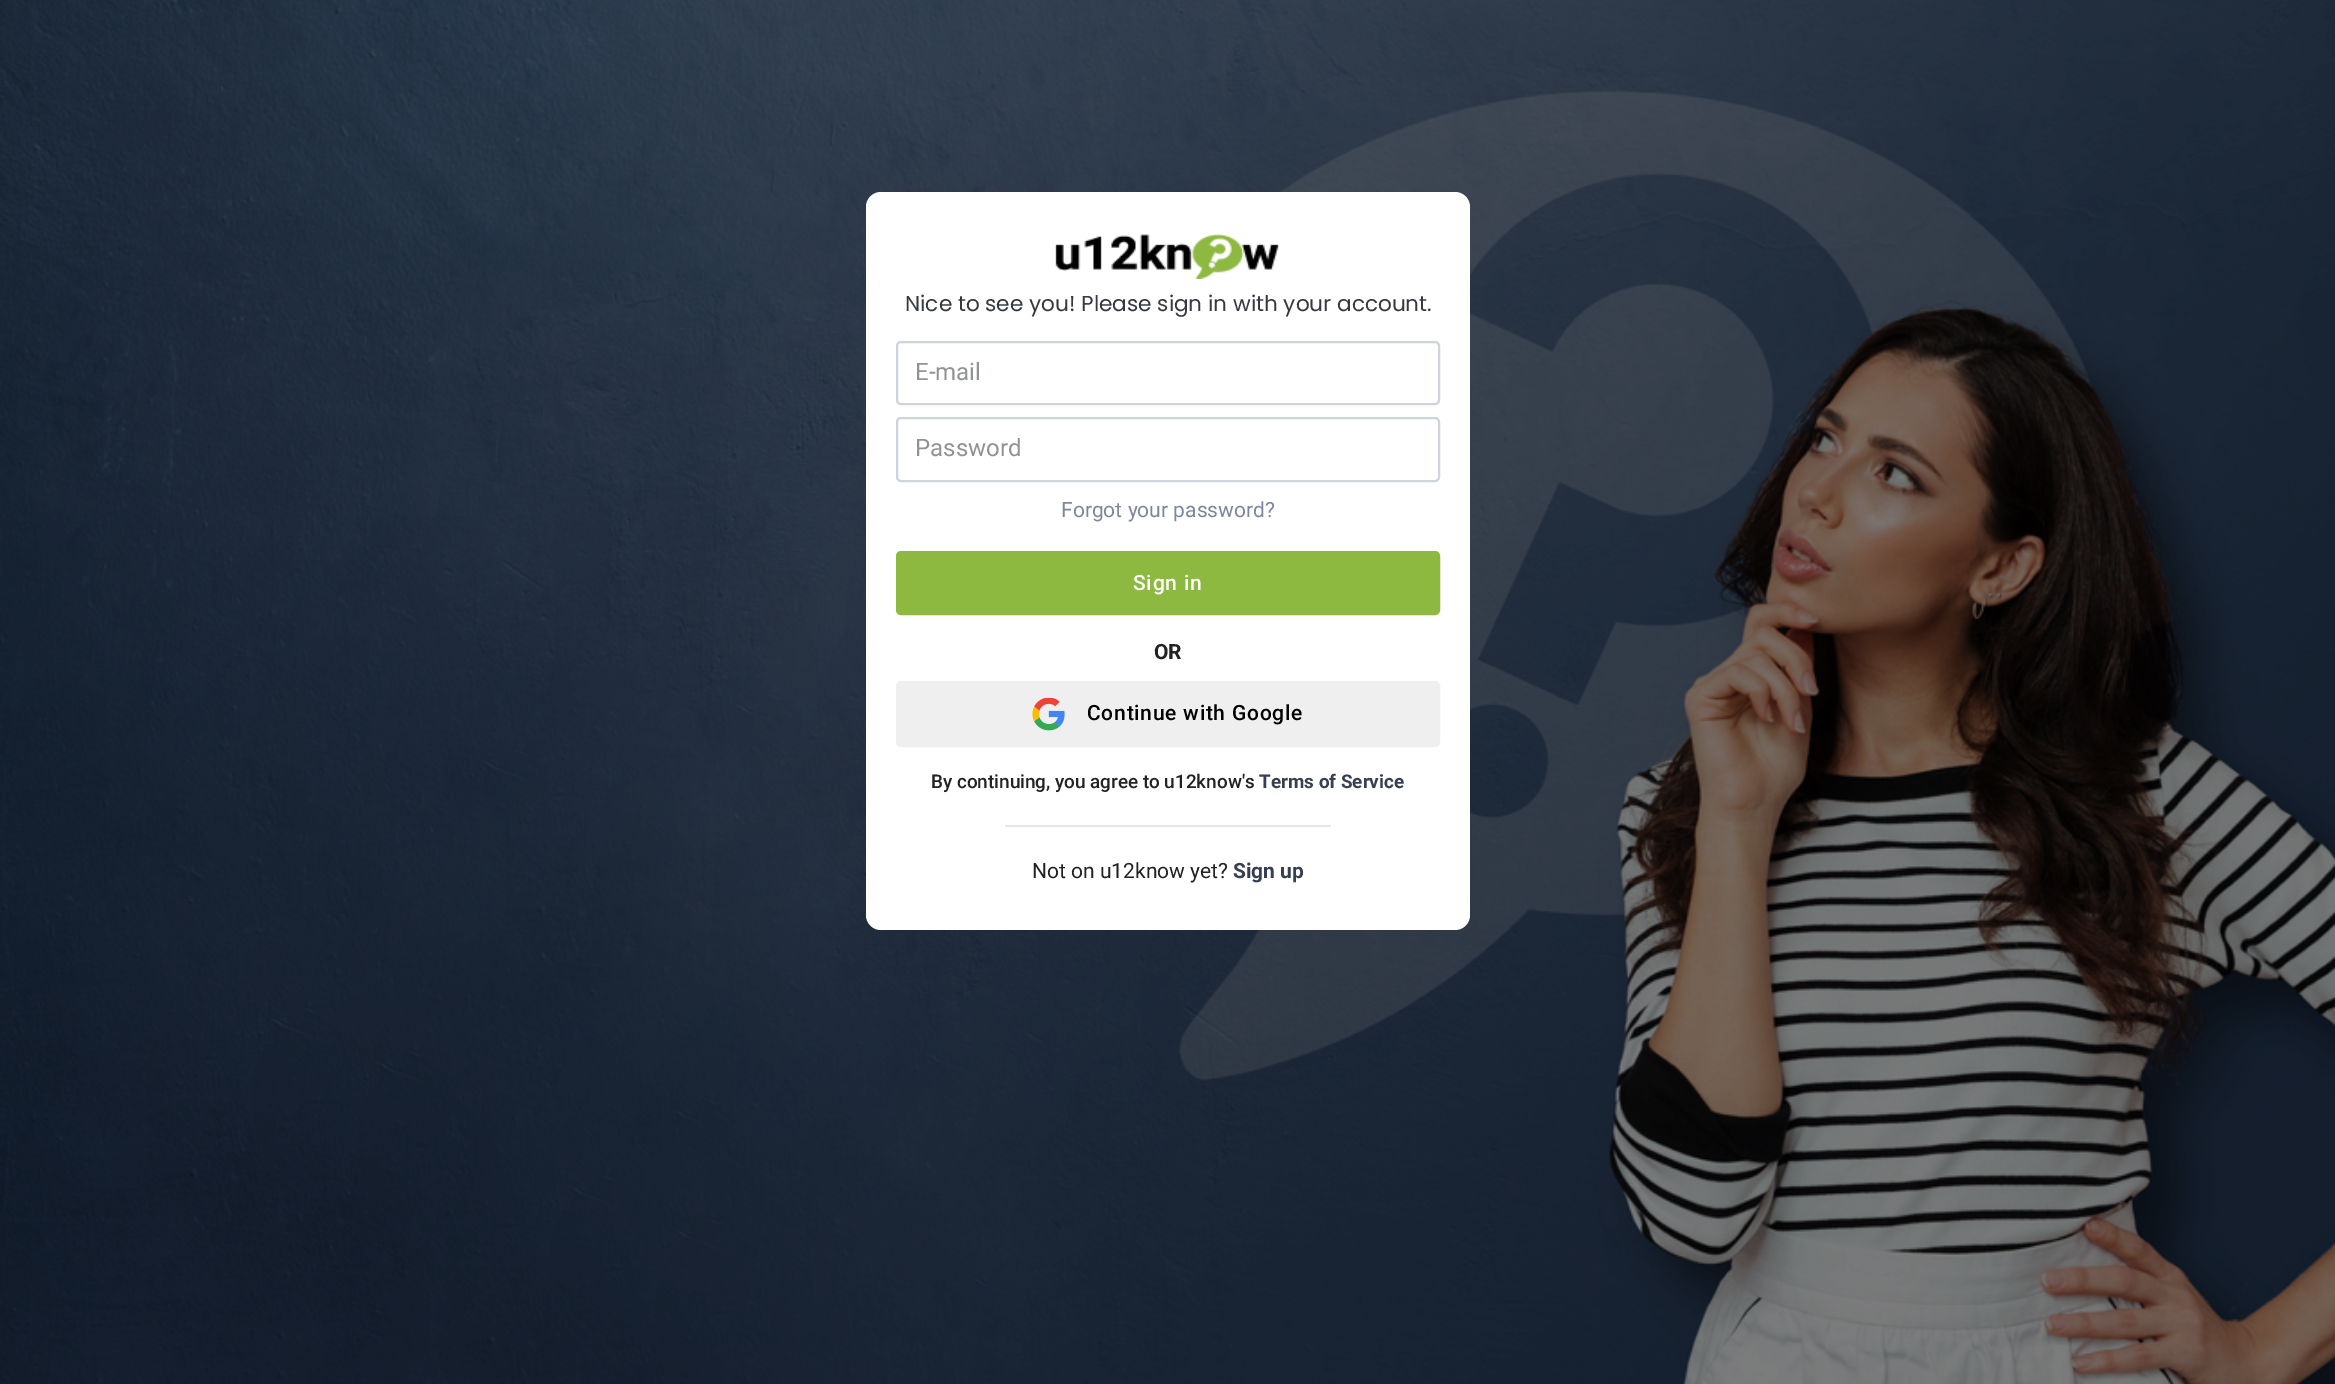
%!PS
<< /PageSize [2335 1384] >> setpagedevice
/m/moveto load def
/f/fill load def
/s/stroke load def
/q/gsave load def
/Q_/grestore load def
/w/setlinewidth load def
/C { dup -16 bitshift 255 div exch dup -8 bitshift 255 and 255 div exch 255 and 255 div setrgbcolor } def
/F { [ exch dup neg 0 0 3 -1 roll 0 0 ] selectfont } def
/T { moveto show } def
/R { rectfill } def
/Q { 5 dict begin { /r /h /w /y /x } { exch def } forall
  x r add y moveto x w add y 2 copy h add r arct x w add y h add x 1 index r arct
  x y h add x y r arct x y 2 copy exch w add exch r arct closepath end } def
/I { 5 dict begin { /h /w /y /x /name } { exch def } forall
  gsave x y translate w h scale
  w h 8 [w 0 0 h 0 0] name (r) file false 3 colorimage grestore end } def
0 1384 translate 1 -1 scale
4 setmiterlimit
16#FFFFFF C
0 0 2335 1384 R
(1.rgb) 0 0 2335 1384 I
866 192 604 738 15 Q f
(2.rgb) 1055 234 224 45 I
/Poppins-Regular 21.6 F
16#343A40 C
(Nice to see you! Please sign in with your account.) 905 311 T
16#CED4DA C
2 w
897 342 542 62 4 Q s
/Roboto-Regular 24 F
16#8F9397 C
(E-mail) 915 380 T
16#CED4DA C
897 418 542 63 4 Q s
16#8F9397 C
(Password) 915 456 T
/Roboto-Regular 21 F
16#7D879C C
(Forgot your password?) 1061 517 T
16#8DB941 C
897.5 552.5 541 61 3.5 Q q f Q_
3 w
s
/Roboto-Medium 21 F
16#FFFFFF C
1133 590 m .75 0 (Sign in) ashow
/Roboto-Bold 21 F
16#222222 C
(OR) 1154 659 T
16#EFEFEF C
897.5 682.5 541 63 3.5 Q q f Q_
s
(3.rgb) 1032 698 33 33 I
/Roboto-Medium 21 F
16#000000 C
1087 720 m .75 0 (Continue with Google) ashow
/Roboto-Medium 18.9 F
16#222222 C
(By continuing, you agree to u12know's) 931 788 T
/Roboto-Bold 18.9 F
16#373F50 C
(Terms of Service) 1259 788 T
16#E6E6E6 C
1005 825 326 2 R
/Roboto-Regular 21 F
16#222222 C
(Not on u12know yet?) 1032 878 T
/Roboto-Bold 21 F
16#373F50 C
(Sign up) 1233 878 T
showpage
